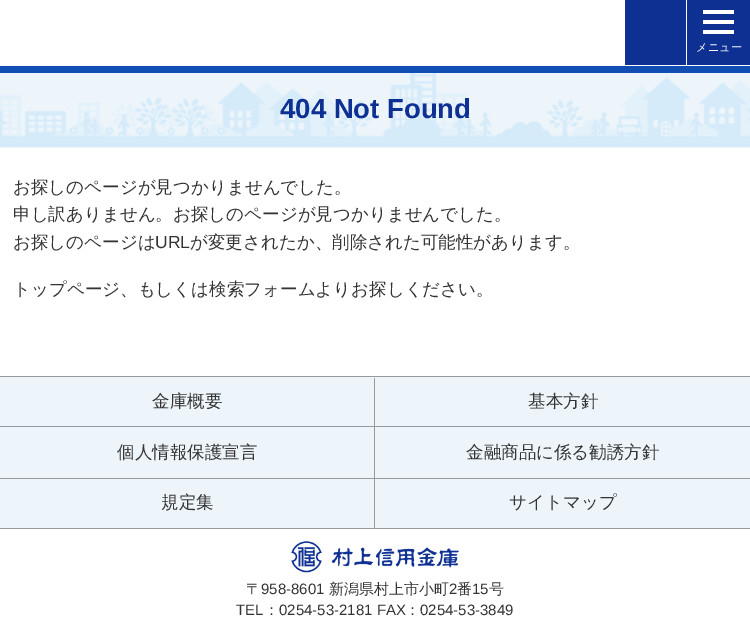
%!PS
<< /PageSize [750 621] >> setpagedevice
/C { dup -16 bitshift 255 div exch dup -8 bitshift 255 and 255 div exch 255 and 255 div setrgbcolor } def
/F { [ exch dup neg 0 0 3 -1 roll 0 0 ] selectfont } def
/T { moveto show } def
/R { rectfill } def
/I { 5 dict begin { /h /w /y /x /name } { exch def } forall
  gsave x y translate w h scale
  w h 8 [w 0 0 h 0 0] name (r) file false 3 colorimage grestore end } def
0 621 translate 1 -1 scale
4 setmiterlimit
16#FFFFFF C
0 0 750 621 R
16#104EB3 C
0 66 750 7 R
16#0E3092 C
625 0 125 65 R
16#FFFFFF C
686 0 1 65 R
703 10 31 4 R
703 20 31 4 R
703 30 31 4 R
/WenQuanYiZenHei-Medium 11.25 F
(メニュー) 696 51 T
(1.rgb) 0 73 750 75 I
/LiberationSans-Bold 27.5 F
16#0E3092 C
(404 Not Found) 280 118 T
/WenQuanYiZenHei-Medium 17.5 F
16#333333 C
(お探しのページが見つかりませんでした。) 13 193 T
(申し訳ありません。お探しのページが見つかりませんでした。) 13 220 T
(お探しのページは) 13 248 T
/LiberationSans-Regular 17.5 F
(URL) 155 248 T
/WenQuanYiZenHei-Medium 17.5 F
(が変更されたか、削除された可能性があります。) 190 248 T
(トップページ、もしくは検索フォームよりお探しください。) 13 295 T
16#EDF5FA C
0 377 750 151 R
16#969A9D C
0 376 750 1 R
374 378 1 151 R
0 426 750 1 R
16#333333 C
(金庫概要) 152 407 T
(基本方針) 528 407 T
16#969A9D C
0 478 750 1 R
16#333333 C
(個人情報保護宣言) 117 458 T
(金融商品に係る勧誘方針) 466 458 T
16#969A9D C
0 528 750 1 R
16#333333 C
(規定集) 161 508 T
(サイトマップ) 509 508 T
(2.rgb) 291 541 168 32 I
/WenQuanYiZenHei-Medium 15 F
(〒) 246 594 T
/LiberationSans-Regular 15 F
(958-8601) 261 594 T
/WenQuanYiZenHei-Medium 15 F
(新潟県村上市小町) 329 594 T
/LiberationSans-Regular 15 F
(2) 449 594 T
/WenQuanYiZenHei-Medium 15 F
(番) 457 594 T
/LiberationSans-Regular 15 F
(15) 472 594 T
/WenQuanYiZenHei-Medium 15 F
(号) 489 594 T
/LiberationSans-Regular 15 F
(TEL) 236 615 T
/WenQuanYiZenHei-Medium 15 F
(：) 264 615 T
/LiberationSans-Regular 15 F
(0254-53-2181 FAX) 279 615 T
/WenQuanYiZenHei-Medium 15 F
(：) 405 615 T
/LiberationSans-Regular 15 F
(0254-53-3849) 420 615 T
showpage
